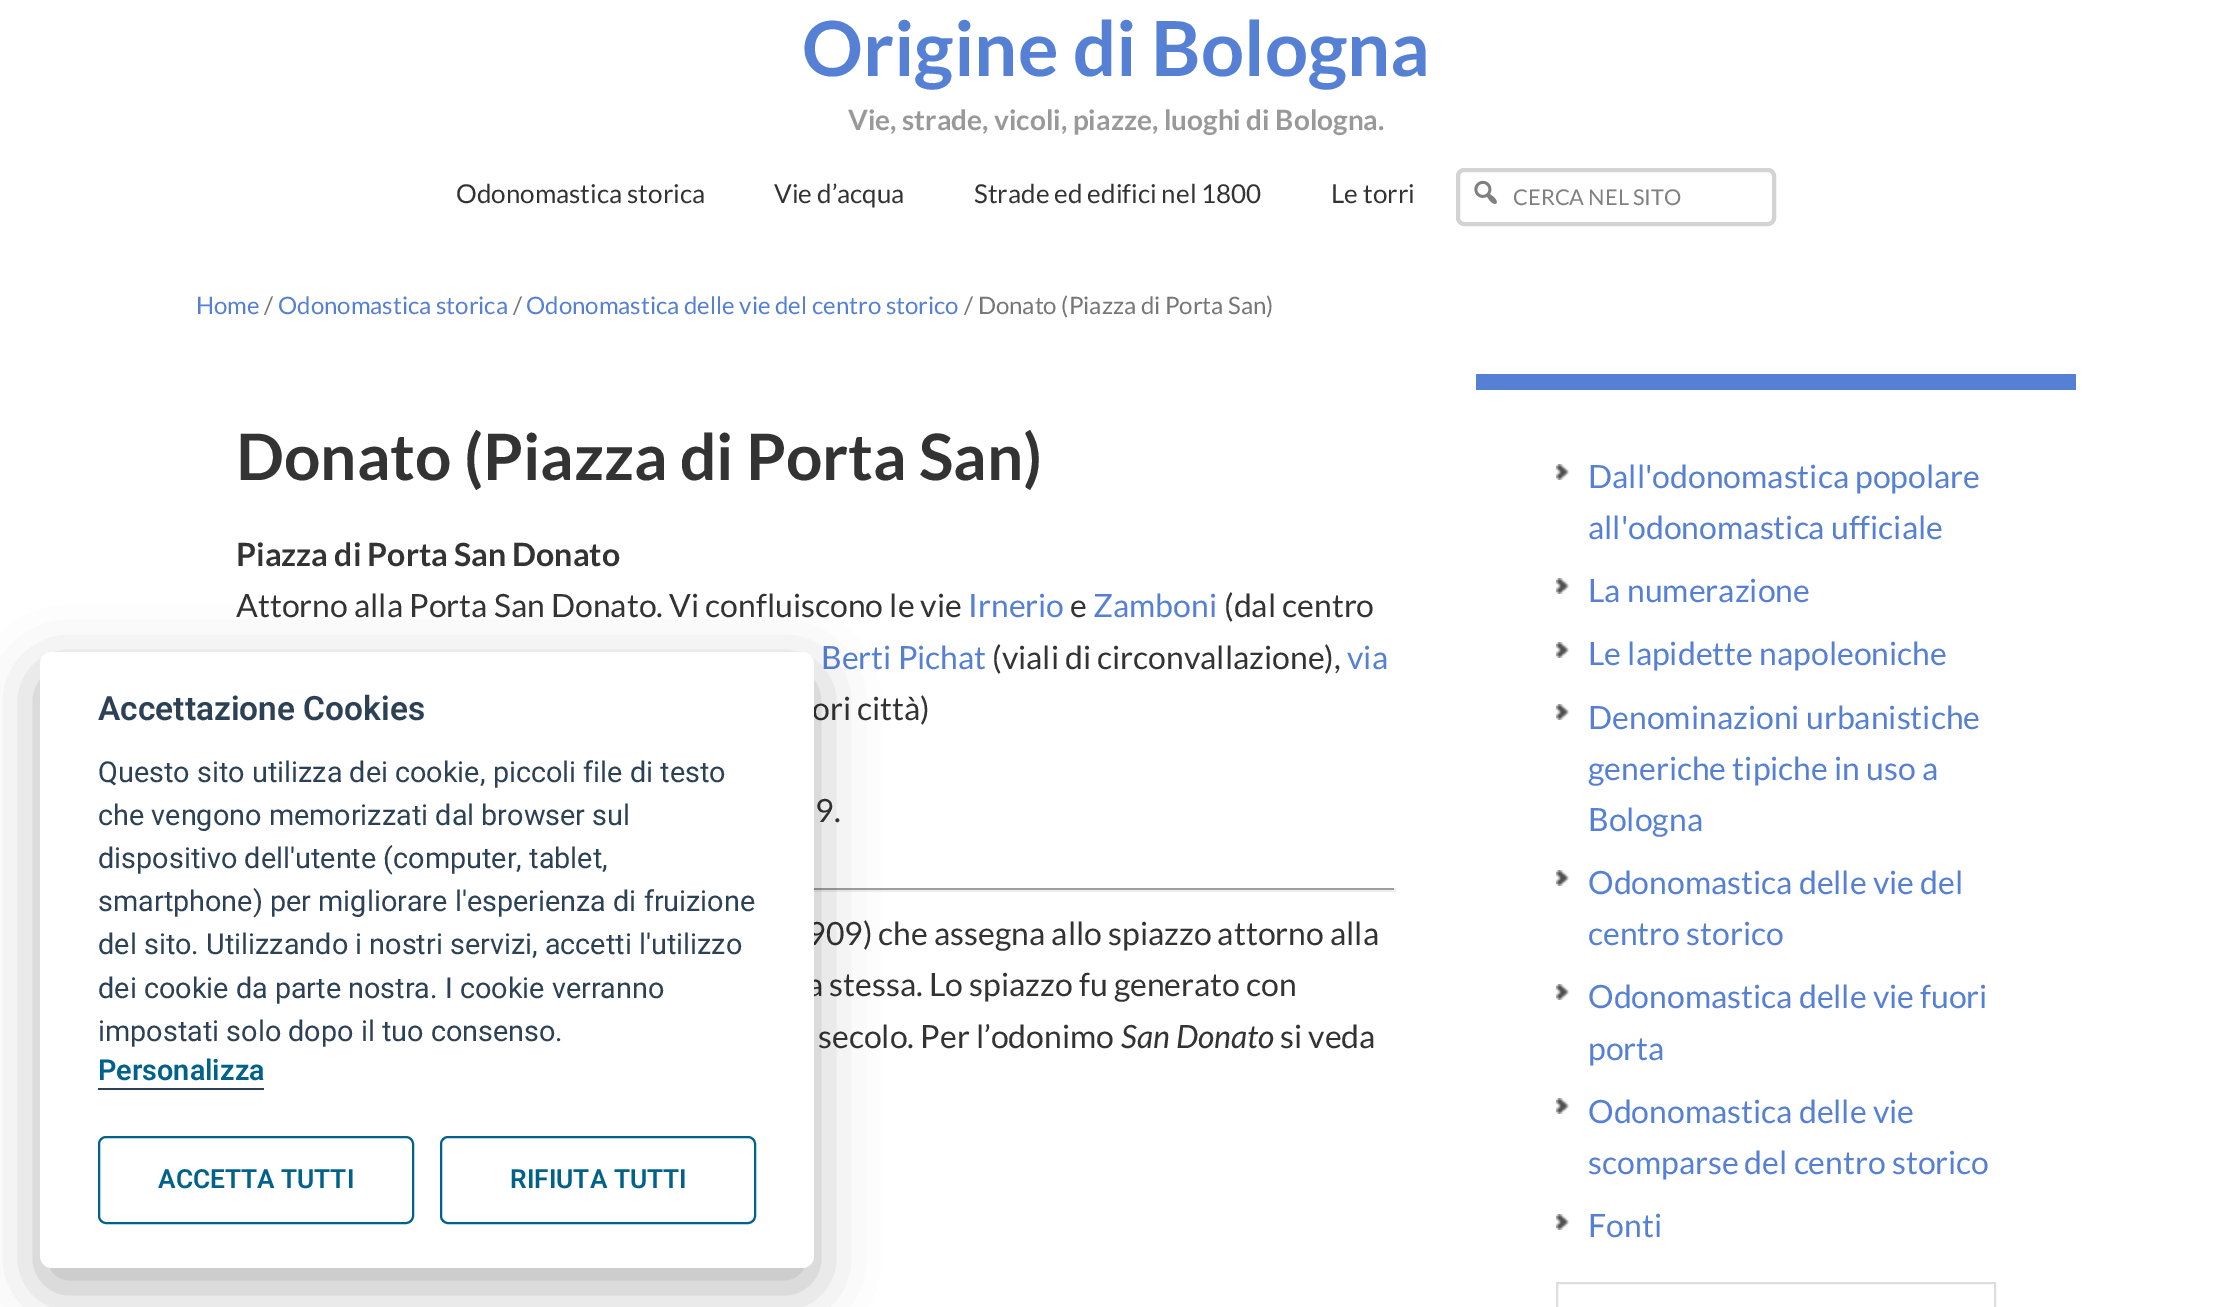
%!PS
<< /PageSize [2231 1307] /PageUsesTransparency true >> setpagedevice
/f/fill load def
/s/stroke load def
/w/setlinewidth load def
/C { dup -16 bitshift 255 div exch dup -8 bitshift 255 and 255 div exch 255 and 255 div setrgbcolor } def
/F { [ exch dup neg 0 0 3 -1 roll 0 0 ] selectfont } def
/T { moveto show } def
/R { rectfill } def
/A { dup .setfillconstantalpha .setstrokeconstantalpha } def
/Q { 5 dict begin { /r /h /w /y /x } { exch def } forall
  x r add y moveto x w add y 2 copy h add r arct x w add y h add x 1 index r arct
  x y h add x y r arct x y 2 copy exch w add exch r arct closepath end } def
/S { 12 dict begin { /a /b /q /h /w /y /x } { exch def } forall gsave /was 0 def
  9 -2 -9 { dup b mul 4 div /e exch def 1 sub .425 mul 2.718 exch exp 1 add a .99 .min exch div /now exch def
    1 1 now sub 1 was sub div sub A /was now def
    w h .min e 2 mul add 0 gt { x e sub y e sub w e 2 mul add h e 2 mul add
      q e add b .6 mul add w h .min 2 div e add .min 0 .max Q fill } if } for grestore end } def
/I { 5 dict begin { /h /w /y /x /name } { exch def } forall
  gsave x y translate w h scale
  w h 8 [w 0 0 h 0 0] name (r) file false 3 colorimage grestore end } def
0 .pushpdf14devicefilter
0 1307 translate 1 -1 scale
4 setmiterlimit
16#FFFFFF C
0 0 2231 1307 R
/Lato-Bold 76 F
16#5580D3 C
(Origine di Bologna) 802 76 T
/Lato-Bold 28 F
16#999999 C
(Vie, strade, vicoli, piazze, luoghi di Bologna.) 848 130 T
/Lato-Regular 26 F
16#333333 C
(Odonomastica storica) 456 203 T
(Vie d’acqua) 774 203 T
(Strade ed edifici nel 1800) 974 203 T
(Le torri) 1331 203 T
16#D3D3D3 C
4 w
1458 170 316 54 6 Q s
(1.rgb) 1474 180 23 24 I
/Lato-Regular 21.75 F
16#808080 C
(CERCA NEL SITO) 1513 205 T
/Lato-Regular 24 F
16#5580D3 C
(Home) 196 314 T
16#777777 C
(/) 264 314 T
16#5580D3 C
(Odonomastica storica) 278 314 T
16#777777 C
(/) 513 314 T
16#5580D3 C
(Odonomastica delle vie del centro storico) 526 314 T
16#777777 C
(/ Donato \(Piazza di Porta San\)) 964 314 T
/Lato-Bold 64 F
16#333333 C
(Donato \(Piazza di Porta San\)) 236 480 T
/Lato-Bold 32 F
(Piazza di Porta San Donato) 236 566 T
/Lato-Regular 32 F
(Attorno alla Porta San Donato. Vi confluiscono le vie) 236 617 T
16#5580D3 C
(Irnerio) 968 617 T
16#333333 C
(e) 1070 617 T
16#5580D3 C
(Zamboni) 1093 617 T
16#333333 C
(\(dal centro) 1224 617 T
16#5580D3 C
(Berti Pichat) 821 669 T
16#333333 C
(\(viali di circonvallazione\),) 992 669 T
16#5580D3 C
(via) 1347 669 T
16#333333 C
(ori città\)) 812 720 T
(9.) 815 822 T
16#9F9F9F C
814 888 582 2 R
16#EEEEEE C
1394 888 2 4 R
814 890 582 2 R
16#333333 C
(909\) che assegna allo spiazzo attorno alla) 807 945 T
(a stessa. Lo spiazzo fu generato con) 807 996 T
(secolo. Per l’odonimo) 818 1048 T
/Lato-Italic 32 F
(San Donato) 1121 1048 T
/Lato-Regular 32 F
(si veda) 1280 1048 T
16#5580D3 C
1476 374 600 16 R
(2.rgb) 1556 464 13 16 I
(Dall'odonomastica popolare) 1588 488 T
(all'odonomastica ufficiale) 1588 539 T
(2.rgb) 1556 578 13 16 I
(La numerazione) 1588 602 T
(2.rgb) 1556 642 13 16 I
(Le lapidette napoleoniche) 1588 665 T
(2.rgb) 1556 704 13 16 I
(Denominazioni urbanistiche) 1588 729 T
(generiche tipiche in uso a) 1588 780 T
(Bologna) 1588 831 T
(2.rgb) 1556 870 13 16 I
(Odonomastica delle vie del) 1588 894 T
(centro storico) 1588 945 T
(2.rgb) 1556 984 13 16 I
(Odonomastica delle vie fuori) 1588 1008 T
(porta) 1588 1060 T
(2.rgb) 1556 1098 13 16 I
(Odonomastica delle vie) 1588 1123 T
(scomparse del centro storico) 1588 1174 T
(2.rgb) 1556 1214 13 16 I
(Fonti) 1588 1237 T
16#DDDDDD C
2 w
1557 1283 438 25 rectstroke
16#020203 C
40 672 774 616 12 30 .28 S
16#FFFFFF C
40 652 774 616 12 Q f
/Roboto-SemiBold 33.5 F
16#2D4156 C
(Accettazione Cookies) 98 720 T
/Roboto-Regular 28.8 F
(Questo sito utilizza dei cookie, piccoli file di testo) 98 782 T
(che vengono memorizzati dal browser sul) 98 825 T
(dispositivo dell'utente \(computer, tablet,) 98 868 T
(smartphone\) per migliorare l'esperienza di fruizione) 98 911 T
(del sito. Utilizzando i nostri servizi, accetti l'utilizzo) 98 954 T
(dei cookie da parte nostra. I cookie verranno) 98 998 T
(impostati solo dopo il tuo consenso.) 98 1041 T
98 1088 166 2 R
/Roboto-SemiBold 28.8 F
16#00618B C
(Personalizza) 98 1080 T
99 1137 314 86 7 Q s
/Roboto-SemiBold 26.25 F
(ACCETTA TUTTI) 158 1188 T
441 1137 314 86 7 Q s
(RIFIUTA TUTTI) 510 1188 T
.poppdf14devicefilter showpage
